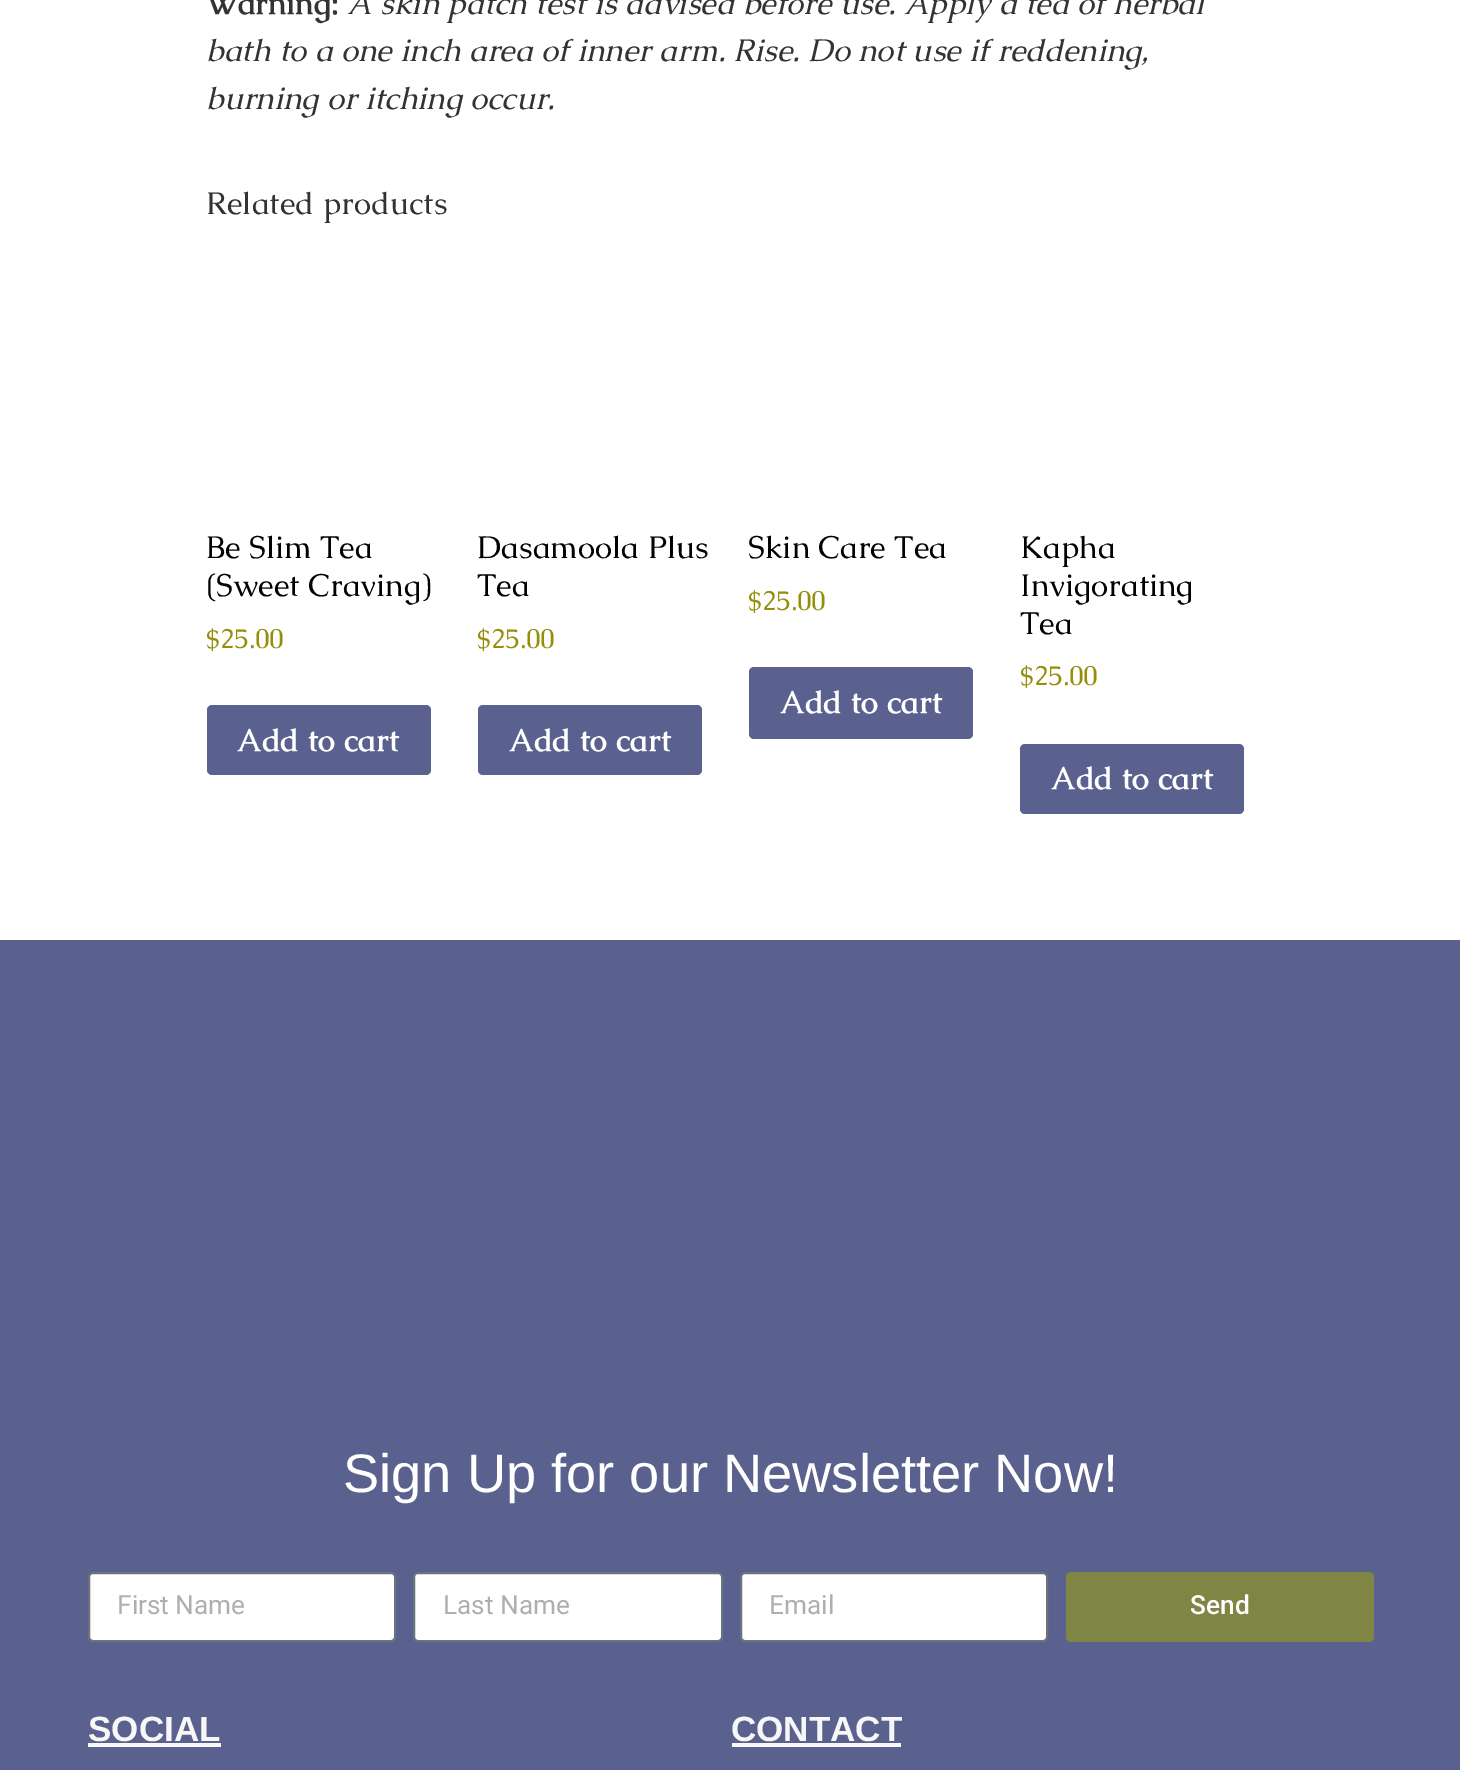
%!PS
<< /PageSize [1460 1770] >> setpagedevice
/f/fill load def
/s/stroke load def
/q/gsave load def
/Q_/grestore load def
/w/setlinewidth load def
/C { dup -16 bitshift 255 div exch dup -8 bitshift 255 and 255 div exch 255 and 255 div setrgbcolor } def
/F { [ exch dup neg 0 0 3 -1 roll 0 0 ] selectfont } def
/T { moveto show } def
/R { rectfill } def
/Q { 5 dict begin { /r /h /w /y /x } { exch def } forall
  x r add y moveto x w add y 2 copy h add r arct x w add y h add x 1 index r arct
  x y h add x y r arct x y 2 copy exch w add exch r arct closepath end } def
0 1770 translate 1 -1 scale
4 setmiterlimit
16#FFFFFF C
0 0 1460 1770 R
/Caudex-Bold 31.5 F
16#333333 C
(Warning:) 206 14 T
/Caudex-Italic 31.5 F
(A skin patch test is advised before use. Apply a tea of herbal) 347 14 T
(bath to a one inch area of inner arm. Rise. Do not use if reddening,) 206 61 T
(burning or itching occur.) 206 109 T
/Caudex-Regular 31.5 F
(Related products) 206 214 T
16#010002 C
(Be Slim Tea) 206 558 T
(\(Sweet Craving\)) 206 596 T
/Caudex-Regular 27 F
16#958E09 C
($25.00) 206 648 T
16#5B618F C
207 705 224 70 5 Q f
/Caudex-Bold 31.5 F
16#FFFFFF C
(Add to cart) 237 751 T
/Caudex-Regular 31.5 F
16#010002 C
(Dasamoola Plus) 477 558 T
(Tea) 477 596 T
/Caudex-Regular 27 F
16#958E09 C
($25.00) 477 648 T
16#5B618F C
478 705 224 70 5 Q f
/Caudex-Bold 31.5 F
16#FFFFFF C
(Add to cart) 509 751 T
/Caudex-Regular 31.5 F
16#010002 C
(Skin Care Tea) 748 558 T
/Caudex-Regular 27 F
16#958E09 C
($25.00) 748 610 T
16#5B618F C
749 667 224 72 5 Q f
/Caudex-Bold 31.5 F
16#FFFFFF C
(Add to cart) 780 713 T
/Caudex-Regular 31.5 F
16#010002 C
(Kapha) 1020 558 T
(Invigorating) 1020 596 T
(Tea) 1020 634 T
/Caudex-Regular 27 F
16#958E09 C
($25.00) 1020 685 T
16#5B618F C
1020 744 224 70 5 Q f
/Caudex-Bold 31.5 F
16#FFFFFF C
(Add to cart) 1051 789 T
16#5B618F C
0 940 1460 830 R
/LiberationSans-Regular 54.25 F
16#FFFFFF C
(Sign Up for our Newsletter Now!) 343 1492 T
89 1573 306 68 4 Q q f Q_
16#69727D C
2 w
s
/Roboto-Regular 26.25 F
16#AFAFAF C
(First Name) 117 1614 T
16#FFFFFF C
414 1573 308 68 4 Q q f Q_
16#69727D C
s
16#AFAFAF C
(Last Name) 443 1614 T
16#FFFFFF C
741 1573 306 68 4 Q q f Q_
16#69727D C
s
16#AFAFAF C
(Email) 769 1614 T
16#7F8643 C
1066 1572 308 70 5 Q f
/Roboto-Medium 26.25 F
16#FFFFFF C
(Send) 1190 1614 T
/LiberationSans-Bold 35 F
16#F7F7F8 C
(SOCIAL) 88 1741 T
88 1743 133 4 R
(CONTACT) 731 1741 T
732 1743 169 4 R
showpage
